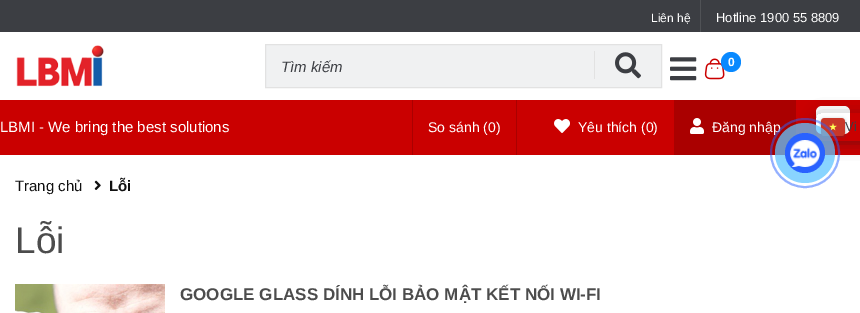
%!PS
<< /PageSize [860 313] /PageUsesTransparency true >> setpagedevice
/m/moveto load def
/l/rlineto load def
/c/rcurveto load def
/z/closepath load def
/f/fill load def
/s/stroke load def
/q/gsave load def
/Q_/grestore load def
/w/setlinewidth load def
/C { dup -16 bitshift 255 div exch dup -8 bitshift 255 and 255 div exch 255 and 255 div setrgbcolor } def
/F { [ exch dup neg 0 0 3 -1 roll 0 0 ] selectfont } def
/T { moveto show } def
/R { rectfill } def
/A { dup .setfillconstantalpha .setstrokeconstantalpha } def
/O { newpath 0 360 arc closepath } def
/Q { 5 dict begin { /r /h /w /y /x } { exch def } forall
  x r add y moveto x w add y 2 copy h add r arct x w add y h add x 1 index r arct
  x y h add x y r arct x y 2 copy exch w add exch r arct closepath end } def
/S { 12 dict begin { /a /b /q /h /w /y /x } { exch def } forall gsave /was 0 def
  9 -2 -9 { dup b mul 4 div /e exch def 1 sub .425 mul 2.718 exch exp 1 add a .99 .min exch div /now exch def
    1 1 now sub 1 was sub div sub A /was now def
    w h .min e 2 mul add 0 gt { x e sub y e sub w e 2 mul add h e 2 mul add
      q e add b .6 mul add w h .min 2 div e add .min 0 .max Q fill } if } for grestore end } def
/I { 5 dict begin { /h /w /y /x /name } { exch def } forall
  gsave x y translate w h scale
  w h 8 [w 0 0 h 0 0] name (r) file false 3 colorimage grestore end } def
0 .pushpdf14devicefilter
0 313 translate 1 -1 scale
4 setmiterlimit
16#FFFFFF C
0 0 860 313 R
16#3C3E43 C
0 0 860 32 R
16#505256 C
700 0 1 32 R
/LiberationSans-Regular 12 F
16#FFFFFF C
(Liên hệ) 651 22 T
/LiberationSans-Regular 13 F
(Hotline 1900 55 8809) 716 22 T
(1.rgb) 16 45 88 42 I
16#F0F1F2 C
265.5 44.5 m 396 0 l 0 43 l -396 0 l z q f Q_
16#E2E2E2 C
s
/LiberationSans-Italic 15 F
16#3C3E43 C
(Tìm kiếm) 281 72 T
16#E2E2E2 C
594 51 1 28 R
(2.rgb) 615 52 26 27 I
(3.rgb) 670 57 27 24 I
(4.rgb) 704 58 21 22 I
16#0989FF C
731 62 10 O f
/LiberationSans-Bold 12 F
16#FFFFFF C
(0) 728 66 T
16#CA0000 C
0 100 860 55 R
/LiberationSans-Regular 15 F
16#FFFFFF C
(LBMI - We bring the best solutions) 0 132 T
16#AA0000 C
412 100 1 55 R
/LiberationSans-Regular 14 F
16#FFFFFF C
(So sánh \(0\)) 428 132 T
16#AA0000 C
516 100 1 55 R
(5.rgb) 554 119 16 14 I
16#FFFFFF C
(Yêu thích \(0\)) 578 132 T
16#AA0000 C
674 100 122 55 R
(6.rgb) 690 118 14 16 I
16#FFFFFF C
(Đăng nhập) 712 132 T
816 106 34 28 6 Q f
q
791 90 m 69 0 l 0 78 l -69 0 l z 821 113 m 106 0 l 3 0 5 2 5 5 c 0 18 l 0 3 -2 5 -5 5 c -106 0 l -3 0 -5 -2 -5 -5 c 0 -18 l 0 -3 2 -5 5 -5 c z eoclip newpath
16#0E1E25 C
816 115 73 28 5 8 .32 S
Q_
q
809 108 m 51 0 l 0 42 l -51 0 l z 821 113 m 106 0 l 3 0 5 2 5 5 c 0 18 l 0 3 -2 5 -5 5 c -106 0 l -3 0 -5 -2 -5 -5 c 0 -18 l 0 -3 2 -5 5 -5 c z eoclip newpath
16#0E1E25 C
816 115 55 28 5 2 .12 S
Q_
16#3C4043 C
820 118 26 20 4 1.5 .15 S
821 119 24 18 3 1 .3 S
(7.rgb) 821 118 24 18 I
/LiberationSans-Regular 13 F
16#3C3E43 C
(Vi) 845 131 T
/LiberationSans-Regular 15 F
16#111111 C
(Trang chủ) 15 191 T
(8.rgb) 94 180 7 10 I
/LiberationSans-Bold 15 F
(Lỗi) 109 191 T
0.5 A
16#2962FF C
2 w
805 153 34 O s
0.75 A
16#61C5FF C
805 153 30 O f
1 A
16#2962FF C
805 153 20 O f
(9.rgb) 790 140 30 27 I
/LiberationSans-Regular 37 F
16#4C4C4C C
(Lỗi) 15 253 T
(10.rgb) 15 284 150 29 I
/LiberationSans-Bold 17 F
(GOOGLE GLASS DÍNH LỖI BẢO MẬT KẾT NỐI WI-FI) 180 300 T
.poppdf14devicefilter showpage
